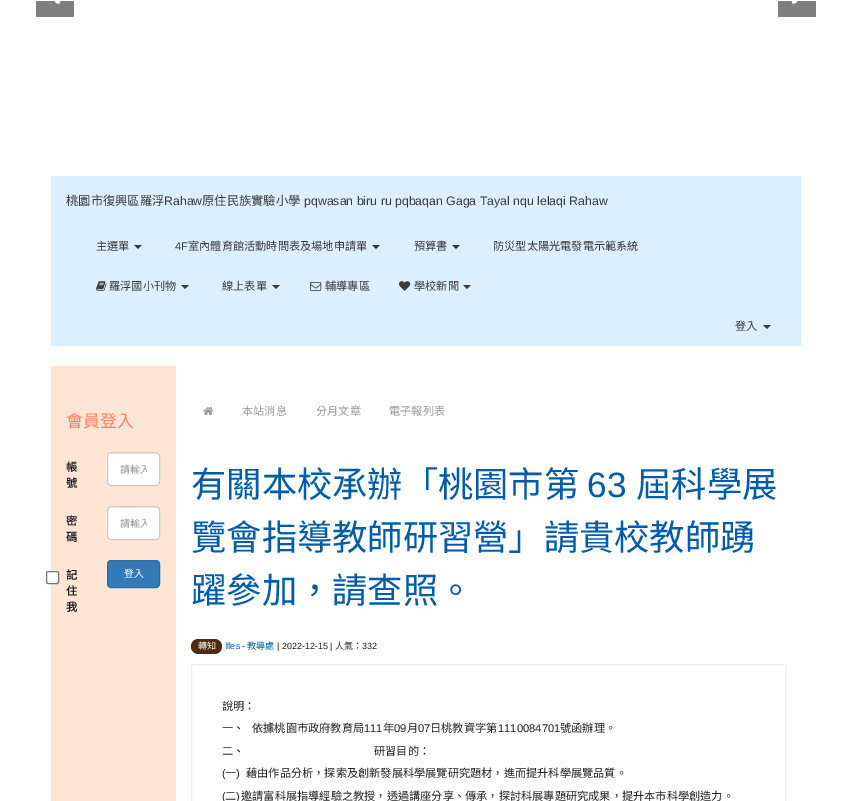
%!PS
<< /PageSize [851 801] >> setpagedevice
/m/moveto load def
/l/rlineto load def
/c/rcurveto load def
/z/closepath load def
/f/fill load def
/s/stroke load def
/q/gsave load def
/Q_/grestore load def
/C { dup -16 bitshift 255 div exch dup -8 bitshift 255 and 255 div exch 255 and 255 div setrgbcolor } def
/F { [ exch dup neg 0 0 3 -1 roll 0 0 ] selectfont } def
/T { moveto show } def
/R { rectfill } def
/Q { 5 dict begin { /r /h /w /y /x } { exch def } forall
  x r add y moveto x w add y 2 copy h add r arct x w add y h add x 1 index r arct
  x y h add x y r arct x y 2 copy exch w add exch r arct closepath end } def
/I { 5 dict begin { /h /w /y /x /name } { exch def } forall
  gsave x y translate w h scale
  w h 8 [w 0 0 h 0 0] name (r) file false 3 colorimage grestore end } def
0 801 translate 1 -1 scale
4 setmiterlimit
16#FFFFFF C
0 0 851 801 R
(1.rgb) 36 1 38 16 I
(2.rgb) 778 1 38 16 I
16#DBEFFF C
51 176 750 170 R
/NotoSansCJKTC-Regular 12.3 F
16#3B3B3B C
(桃園市復興區羅浮) 66 205 T
/LiberationSans-Regular 12.3 F
(Rahaw) 164 205 T
/NotoSansCJKTC-Regular 12.3 F
(原住民族實驗小學) 202 205 T
/LiberationSans-Regular 12.3 F
(pqwasan biru ru pqbaqan Gaga Tayal nqu lelaqi Rahaw) 304 205 T
/NotoSansCJKTC-Regular 11.2 F
(主選單) 96 250 T
134 245 m 8 0 l -4 4 l z f
/LiberationSans-Regular 11.2 F
(4F) 175 250 T
/NotoSansCJKTC-Regular 11.2 F
(室內體育館活動時間表及場地申請單) 188 250 T
372 245 m 8 0 l -4 4 l z f
(預算書) 414 250 T
452 245 m 8 0 l -4 4 l z f
(防災型太陽光電發電示範系統) 493 250 T
(3.rgb) 96 281 11 10 I
(羅浮國小刊物) 109 290 T
181 285 m 8 0 l -4 4 l z f
(線上表單) 222 290 T
272 285 m 8 0 l -4 4 l z f
(4.rgb) 310 282 12 9 I
(輔導專區) 325 290 T
(5.rgb) 399 281 12 10 I
(學校新聞) 414 290 T
463 285 m 8 0 l -4 4 l z f
(登入) 735 330 T
763 325 m 8 0 l -4 4 l z f
16#FFE5D6 C
51 366 125 435 R
/NotoSansCJKTC-Regular 17 F
16#FF8466 C
(會員登入) 66 427 T
/NotoSansCJKTC-Bold 11.2 F
16#202020 C
(帳) 66 471 T
(號) 66 487 T
16#FFFFFF C
107 452 53 34 4 Q f
16#ECECEC C
111 454 m 45 0 l 2 0 3 1 3 3 c 0 -6 -6 -4 -11 -4 c -30 0 l -4 0 -10 -2 -10 4 c 0 -2 1 -3 3 -3 c z f
16#CCCCCC C
107.5 452.5 52 33 3.5 Q s
q
120 461 27 15 rectclip
/NotoSansCJKTC-Regular 10 F
16#999999 C
(請輸入) 120 473 T
Q_
16#202020 C
(密) 66 525 T
(碼) 66 541 T
16#FFFFFF C
107 506 53 34 4 Q f
16#ECECEC C
111 508 m 45 0 l 2 0 3 1 3 3 c 0 -6 -6 -4 -11 -4 c -30 0 l -4 0 -10 -2 -10 4 c 0 -2 1 -3 3 -3 c z f
16#CCCCCC C
107.5 506.5 52 33 3.5 Q s
q
120 515 27 15 rectclip
/NotoSansCJKTC-Regular 10 F
16#999999 C
(請輸入) 120 527 T
Q_
16#FFFFFF C
46.5 571.5 12 12 1.5 Q q f Q_
16#767676 C
s
16#202020 C
(記) 66 579 T
(住) 66 595 T
(我) 66 611 T
16#337AB7 C
107.5 560.5 52 27 3.5 Q q f Q_
16#2E6DA4 C
s
/NotoSansCJKTC-Regular 10 F
16#FFFFFF C
(登入) 124 577 T
(6.rgb) 203 407 11 8 I
/NotoSansCJKTC-Regular 11.2 F
16#999999 C
(本站消息) 242 415 T
(分月文章) 316 415 T
(電子報列表) 389 415 T
/NotoSansCJKTC-Regular 35.25 F
16#005CA8 C
(有關本校承辦「桃園市第) 191 497 T
/LiberationSans-Regular 35.25 F
(63) 587 497 T
/NotoSansCJKTC-Regular 35.25 F
(屆科學展) 636 497 T
(覽會指導教師研習營」請貴校教師踴) 191 550 T
(躍參加，請查照。) 191 603 T
16#4C2B11 C
191 639 31 15 7.5 Q f
/NotoSansCJKTC-Regular 9 F
16#FFFFF1 C
(轉知) 198 649 T
/LiberationSans-Regular 9 F
16#005CA8 C
(lfes) 226 649 T
16#202020 C
(-) 242 649 T
/NotoSansCJKTC-Regular 9 F
16#005CA8 C
(教導處) 247 649 T
/LiberationSans-Regular 9 F
16#202020 C
(| 2022-12-15 |) 277 649 T
/NotoSansCJKTC-Regular 9 F
(人氣：) 335 649 T
/LiberationSans-Regular 9 F
(332) 362 649 T
16#EFEFEF C
191.5 664.5 594 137 rectstroke
/NotoSansCJKTC-Regular 11.2 F
16#202020 C
(說明：) 222 710 T
(一、) 222 732 T
(依據桃園市政府教育局) 252 732 T
/LiberationSans-Regular 11.2 F
(111) 364 732 T
/NotoSansCJKTC-Regular 11.2 F
(年) 383 732 T
/LiberationSans-Regular 11.2 F
(09) 394 732 T
/NotoSansCJKTC-Regular 11.2 F
(月) 407 732 T
/LiberationSans-Regular 11.2 F
(07) 418 732 T
/NotoSansCJKTC-Regular 11.2 F
(日桃教資字第) 430 732 T
/LiberationSans-Regular 11.2 F
(1110084701) 498 732 T
/NotoSansCJKTC-Regular 11.2 F
(號函辦理。) 560 732 T
(二、) 222 755 T
(研習目的：) 374 755 T
/LiberationSans-Regular 11.2 F
(\() 222 777 T
/NotoSansCJKTC-Regular 11.2 F
(一) 225 777 T
/LiberationSans-Regular 11.2 F
(\)) 236 777 T
/NotoSansCJKTC-Regular 11.2 F
(藉由作品分析，探索及創新發展科學展覽研究題材，進而提升科學展覽品質。) 246 777 T
/LiberationSans-Regular 11.2 F
(\() 222 800 T
/NotoSansCJKTC-Regular 11.2 F
(二) 225 800 T
/LiberationSans-Regular 11.2 F
(\)) 236 800 T
/NotoSansCJKTC-Regular 11.2 F
(邀請富科展指導經驗之教授，透過講座分享、傳承，探討科展專題研究成果，提升本市科學創造力。) 241 800 T
showpage
